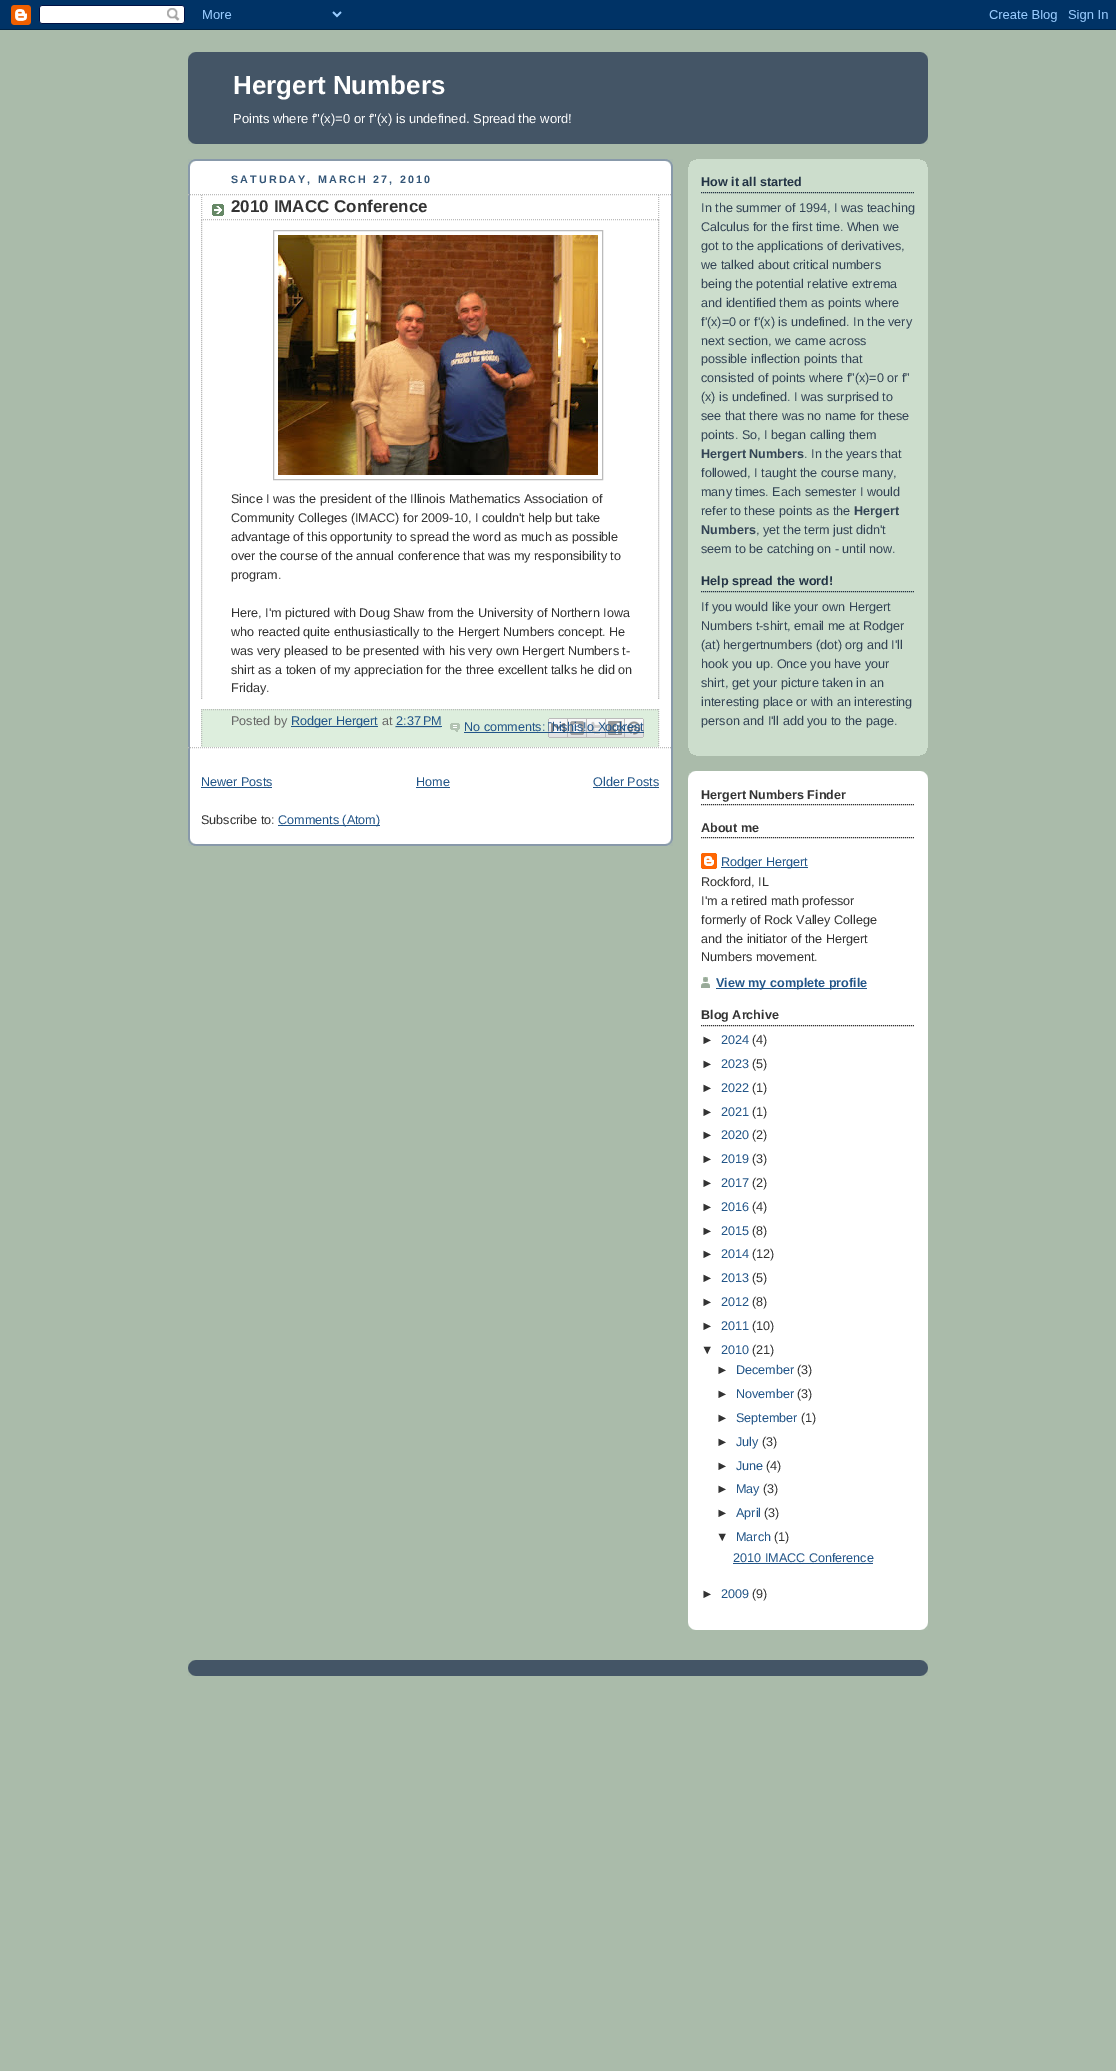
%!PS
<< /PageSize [1116 2071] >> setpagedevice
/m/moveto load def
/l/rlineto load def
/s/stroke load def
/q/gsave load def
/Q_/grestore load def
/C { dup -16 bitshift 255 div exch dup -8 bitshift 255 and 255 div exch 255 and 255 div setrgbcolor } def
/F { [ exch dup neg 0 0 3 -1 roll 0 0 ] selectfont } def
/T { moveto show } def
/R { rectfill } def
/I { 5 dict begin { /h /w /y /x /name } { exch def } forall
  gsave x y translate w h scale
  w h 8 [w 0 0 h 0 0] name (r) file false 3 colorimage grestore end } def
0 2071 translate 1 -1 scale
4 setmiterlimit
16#AABBAA C
0 0 1116 2071 R
(1.rgb) 0 0 1116 30 I
16#445566 C
188 52 740 92 R
(2.rgb) 188 52 740 8 I
(3.rgb) 188 136 740 8 I
/LiberationSans-Bold 26 F
16#FFFFFF C
(Hergert Numbers) 233 94 T
/LiberationSans-Regular 13 F
(Points where f"\(x\)=0 or f"\(x\) is undefined. Spread the word!) 233 123 T
190 161 481 683 R
(4.rgb) 188 796 485 50 I
(5.rgb) 188 159 485 50 I
(6.rgb) 188 209 485 587 I
/LiberationSans-Bold 10.75 F
16#335577 C
231 183 m 2.1 0 (SATURDAY, MARCH 27, 2010) ashow
16#BBBBBB C
[1 1] 0 setdash
188 194.5 m 484 0 l s
188 747.5 m 484 0 l s
(7.rgb) 212 204 12 12 I
658.5 195 m 0 25 l s
201 219.5 m 458 0 l s
201.5 195 m 0 25 l s
/LiberationSans-Bold 17 F
16#333333 C
(2010 IMACC Conference) 231 212 T
16#BBBBBB C
658.5 220 m 0 479 l s
201.5 220 m 0 479 l s
[] 0 setdash
273.5 230.5 329 249 rectstroke
(8.rgb) 278 235 320 240 I
/LiberationSans-Regular 12.6 F
16#333333 C
(Since I was the president of the Illinois Mathematics Association of) 231 503 T
(Community Colleges \(IMACC\) for 2009-10, I couldn't help but take) 231 522 T
(advantage of this opportunity to spread the word as much as possible) 231 541 T
(over the course of the annual conference that was my responsibility to) 231 560 T
(program.) 231 579 T
(Here, I'm pictured with Doug Shaw from the University of Northern Iowa) 231 617 T
(who reacted quite enthusiastically to the Hergert Numbers concept. He) 231 636 T
(was very pleased to be presented with his very own Hergert Numbers t-) 231 655 T
(shirt as a token of my appreciation for the three excellent talks he did on) 231 674 T
(Friday.) 231 692 T
16#DDEEDD C
201 709 458 38 R
16#BBBBBB C
[1 1] 0 setdash
201 709.5 m 458 0 l s
658.5 709 m 0 38 l s
201.5 709 m 0 38 l s
16#666666 C
(Posted by) 231 725 T
16#225588 C
291 726 87 1 R
(Rodger Hergert) 291 725 T
16#666666 C
(at) 382 725 T
16#225588 C
(2:37 PM) 396 725 T
395.5 726.5 m 46 0 l s
396 726 46 1 R
(9.rgb) 450 723 10 9 I
(No comments:) 464 731 T
464 732 85 1 R
(10.rgb) 548 718 19 20 I
q
548 718 20 20 rectclip
(This) 544 731 T
Q_
548 732 20 1 R
(11.rgb) 567 718 19 20 I
(his!) 567 731 T
567 732 20 1 R
(12.rgb) 586 718 19 20 I
(o X) 587 731 T
586 732 20 1 R
(13.rgb) 605 718 19 20 I
(ook) 605 731 T
605 732 20 1 R
(14.rgb) 624 718 20 20 I
q
624 718 20 20 rectclip
(rest) 623 731 T
Q_
624 732 20 1 R
(Newer Posts) 201 786 T
201 787 71 1 R
(Home) 416 786 T
416 787 34 1 R
(Older Posts) 593 786 T
593 787 66 1 R
16#333333 C
(Subscribe to:) 201 824 T
16#225588 C
278 825 102 1 R
(Comments \(Atom\)) 278 824 T
16#CCDDCC C
688 159 240 597 R
(15.rgb) 688 748 240 8 I
(16.rgb) 688 159 240 8 I
16#223344 C
701 192.5 m 214 0 l s
/LiberationSans-Bold 12.6 F
(How it all started) 701 186 T
/LiberationSans-Regular 12.6 F
16#334455 C
(In the summer of 1994, I was teaching) 701 212 T
(Calculus for the first time. When we) 701 231 T
(got to the applications of derivatives,) 701 250 T
(we talked about critical numbers) 701 269 T
(being the potential relative extrema) 701 288 T
(and identified them as points where) 701 307 T
(f'\(x\)=0 or f'\(x\) is undefined. In the very) 701 326 T
(next section, we came across) 701 345 T
(possible inflection points that) 701 363 T
(consisted of points where f"\(x\)=0 or f") 701 382 T
(\(x\) is undefined. I was surprised to) 701 401 T
(see that there was no name for these) 701 420 T
(points. So, I began calling them) 701 439 T
/LiberationSans-Bold 12.6 F
(Hergert Numbers) 701 458 T
/LiberationSans-Regular 12.6 F
(. In the years that) 804 458 T
(followed, I taught the course many,) 701 477 T
(many times. Each semester I would) 701 496 T
(refer to these points as the) 701 515 T
/LiberationSans-Bold 12.6 F
(Hergert) 854 515 T
(Numbers) 701 534 T
/LiberationSans-Regular 12.6 F
(, yet the term just didn't) 756 534 T
(seem to be catching on - until now.) 701 553 T
16#223344 C
701 591.5 m 214 0 l s
/LiberationSans-Bold 12.6 F
(Help spread the word!) 701 585 T
/LiberationSans-Regular 12.6 F
16#334455 C
(If you would like your own Hergert) 701 611 T
(Numbers t-shirt, email me at Rodger) 701 630 T
(\(at\) hergertnumbers \(dot\) org and I'll) 701 649 T
(hook you up. Once you have your) 701 668 T
(shirt, get your picture taken in an) 701 687 T
(interesting place or with an interesting) 701 706 T
(person and I'll add you to the page.) 701 725 T
16#FFFFFF C
688 771 240 859 R
(17.rgb) 688 771 240 8 I
(18.rgb) 688 1622 240 8 I
16#333333 C
701 804.5 m 214 0 l s
/LiberationSans-Bold 12.6 F
(Hergert Numbers Finder) 701 799 T
701 837.5 m 214 0 l s
(About me) 701 832 T
(19.rgb) 701 853 16 16 I
16#225588 C
721 867 87 1 R
/LiberationSans-Regular 12.6 F
(Rodger Hergert) 721 866 T
16#333333 C
(Rockford, IL) 701 886 T
(I'm a retired math professor) 701 905 T
(formerly of Rock Valley College) 701 924 T
(and the initiator of the Hergert) 701 943 T
(Numbers movement.) 701 961 T
(20.rgb) 701 977 9 11 I
16#225588 C
716 988 151 1 R
/LiberationSans-Bold 12.6 F
(View my complete profile) 716 987 T
16#333333 C
701 1025.5 m 214 0 l s
(Blog Archive) 701 1019 T
/LiberationSans-Regular 12.6 F
(►) 701 1044 T
16#225588 C
(2024) 721 1044 T
16#333333 C
(\(4\)) 752 1044 T
(►) 701 1068 T
16#225588 C
(2023) 721 1068 T
16#333333 C
(\(5\)) 752 1068 T
(►) 701 1092 T
16#225588 C
(2022) 721 1092 T
16#333333 C
(\(1\)) 752 1092 T
(►) 701 1116 T
16#225588 C
(2021) 721 1116 T
16#333333 C
(\(1\)) 752 1116 T
(►) 701 1139 T
16#225588 C
(2020) 721 1139 T
16#333333 C
(\(2\)) 752 1139 T
(►) 701 1163 T
16#225588 C
(2019) 721 1163 T
16#333333 C
(\(3\)) 752 1163 T
(►) 701 1187 T
16#225588 C
(2017) 721 1187 T
16#333333 C
(\(2\)) 752 1187 T
(►) 701 1211 T
16#225588 C
(2016) 721 1211 T
16#333333 C
(\(4\)) 752 1211 T
(►) 701 1235 T
16#225588 C
(2015) 721 1235 T
16#333333 C
(\(8\)) 752 1235 T
(►) 701 1258 T
16#225588 C
(2014) 721 1258 T
16#333333 C
(\(12\)) 752 1258 T
(►) 701 1282 T
16#225588 C
(2013) 721 1282 T
16#333333 C
(\(5\)) 752 1282 T
(►) 701 1306 T
16#225588 C
(2012) 721 1306 T
16#333333 C
(\(8\)) 752 1306 T
(►) 701 1330 T
16#225588 C
(2011) 721 1330 T
16#333333 C
(\(10\)) 752 1330 T
(▼) 701 1354 T
16#225588 C
(2010) 721 1354 T
16#333333 C
(\(21\)) 752 1354 T
(►) 716 1374 T
16#225588 C
(December) 736 1374 T
16#333333 C
(\(3\)) 797 1374 T
(►) 716 1398 T
16#225588 C
(November) 736 1398 T
16#333333 C
(\(3\)) 797 1398 T
(►) 716 1422 T
16#225588 C
(September) 736 1422 T
16#333333 C
(\(1\)) 801 1422 T
(►) 716 1446 T
16#225588 C
(July) 736 1446 T
16#333333 C
(\(3\)) 762 1446 T
(►) 716 1470 T
16#225588 C
(June) 736 1470 T
16#333333 C
(\(4\)) 766 1470 T
(►) 716 1493 T
16#225588 C
(May) 736 1493 T
16#333333 C
(\(3\)) 763 1493 T
(►) 716 1517 T
16#225588 C
(April) 736 1517 T
16#333333 C
(\(3\)) 764 1517 T
(▼) 716 1541 T
16#225588 C
(March) 736 1541 T
16#333333 C
(\(1\)) 774 1541 T
16#225588 C
(2010 IMACC Conference) 733 1562 T
733 1563 140 1 R
16#333333 C
(►) 701 1598 T
16#225588 C
(2009) 721 1598 T
16#333333 C
(\(9\)) 752 1598 T
16#445566 C
189 1660 738 16 R
(2.rgb) 188 1660 740 8 I
(3.rgb) 188 1668 740 8 I
showpage
